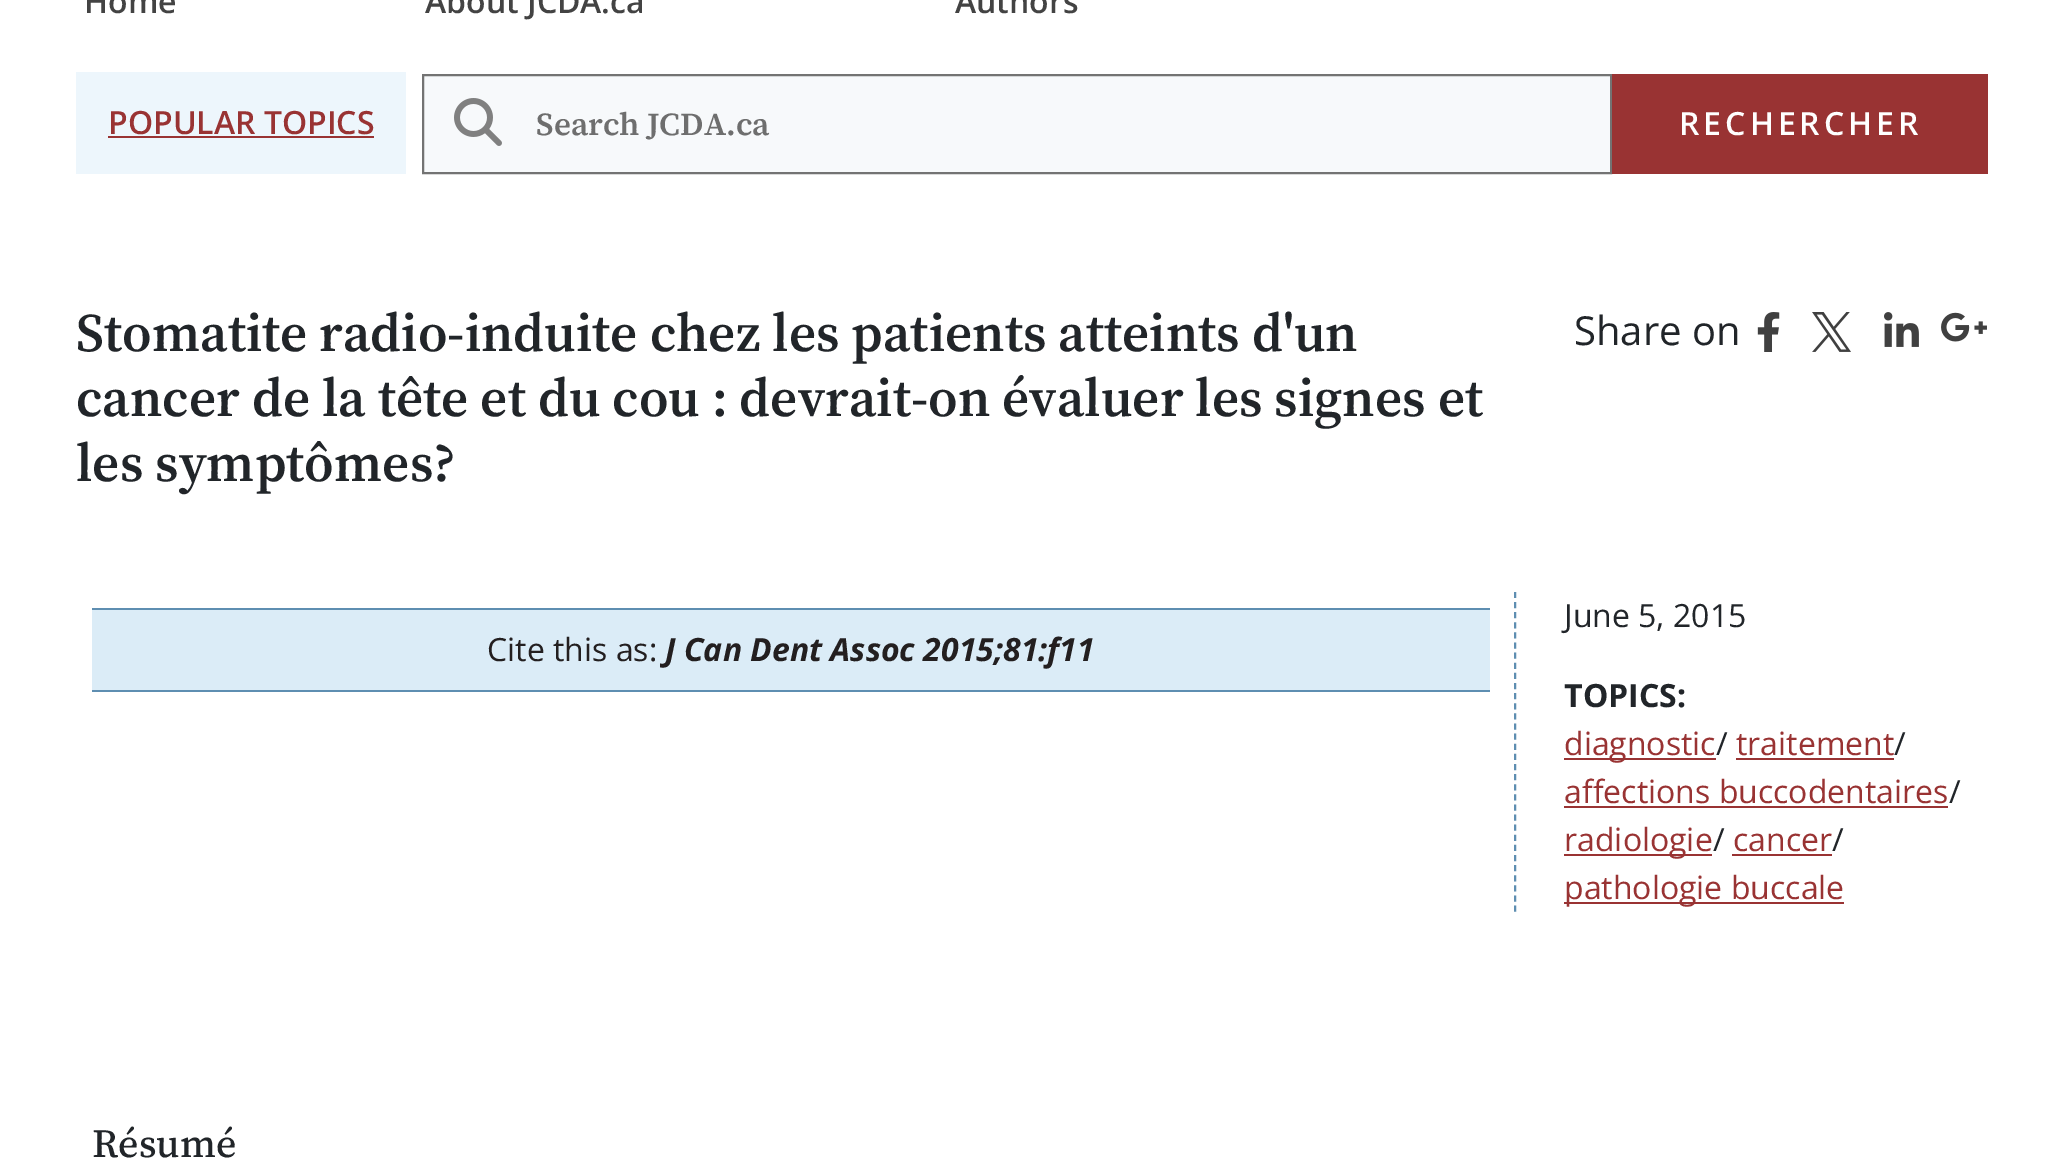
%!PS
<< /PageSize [2063 1163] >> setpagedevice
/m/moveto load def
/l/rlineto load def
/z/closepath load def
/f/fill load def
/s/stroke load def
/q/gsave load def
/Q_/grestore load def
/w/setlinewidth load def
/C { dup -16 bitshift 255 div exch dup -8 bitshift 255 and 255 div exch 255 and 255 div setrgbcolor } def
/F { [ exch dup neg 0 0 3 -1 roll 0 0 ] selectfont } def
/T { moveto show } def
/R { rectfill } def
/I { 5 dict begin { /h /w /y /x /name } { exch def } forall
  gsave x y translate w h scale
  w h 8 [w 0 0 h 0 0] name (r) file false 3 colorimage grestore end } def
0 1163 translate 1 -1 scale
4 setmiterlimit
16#FFFFFF C
0 0 2063 1163 R
/OpenSans-SemiBold 32 F
16#434343 C
(Home) 84 13 T
(About JCDA.ca) 425 13 T
(Authors) 955 13 T
16#EDF6FC C
76 72 330 102 R
16#993333 C
(POPULAR TOPICS) 108 134 T
108 136 266 2 R
16#F7F9FB C
423 75 m 1188 0 l 0 98 l -1188 0 l z q f Q_
16#737373 C
2 w
s
(1.rgb) 454 98 48 48 I
/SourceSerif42-SemiBold 32 F
16#6E6E6E C
(Search JCDA.ca) 536 135 T
16#993333 C
1612 74 376 100 R
/OpenSans-SemiBold 32 F
16#FFFFFF C
1679 135 m 4 0 (RECHERCHER) ashow
/SourceSerif4-SemiBold 54 F
16#212529 C
(Stomatite radio-induite chez les patients atteints d'un) 76 351 T
(cancer de la tête et du cou : devrait-on évaluer les signes et) 76 416 T
(les symptômes?) 76 481 T
/OpenSans-Regular 40 F
(Share on) 1574 345 T
(2.rgb) 1757 312 23 40 I
(3.rgb) 1812 312 39 40 I
(4.rgb) 1884 312 35 35 I
(5.rgb) 1941 312 46 30 I
16#DBECF7 C
92 610 1398 80 R
16#5E8EB1 C
92 608 1398 2 R
92 690 1398 2 R
/OpenSans-Regular 32 F
16#231F20 C
(Cite this as:) 487 661 T
/OpenSans-BoldItalic 32 F
(J Can Dent Assoc 2015;81:f11) 665 661 T
16#5E8EB1 C
[6 4.12] 0 setdash
1515 592 m 0 320 l s
/OpenSans-Regular 32 F
16#212529 C
(June 5, 2015) 1564 627 T
/OpenSans-Bold 32 F
(TOPICS:) 1564 707 T
16#993333 C
1564 758 152 2 R
/OpenSans-Regular 32 F
(diagnostic) 1564 755 T
16#212529 C
(/) 1716 755 T
16#993333 C
(traitement) 1736 755 T
1736 758 158 2 R
16#212529 C
(/) 1894 755 T
16#993333 C
(affections buccodentaires) 1564 803 T
1564 806 384 2 R
16#212529 C
(/) 1949 803 T
16#993333 C
1564 854 148 2 R
(radiologie) 1564 851 T
16#212529 C
(/) 1713 851 T
16#993333 C
(cancer) 1733 851 T
1732 854 100 2 R
16#212529 C
(/) 1832 851 T
16#993333 C
1564 902 280 2 R
(pathologie buccale) 1564 899 T
/SourceSerif4-Medium 40 F
16#212529 C
(Résumé) 92 1157 T
showpage
